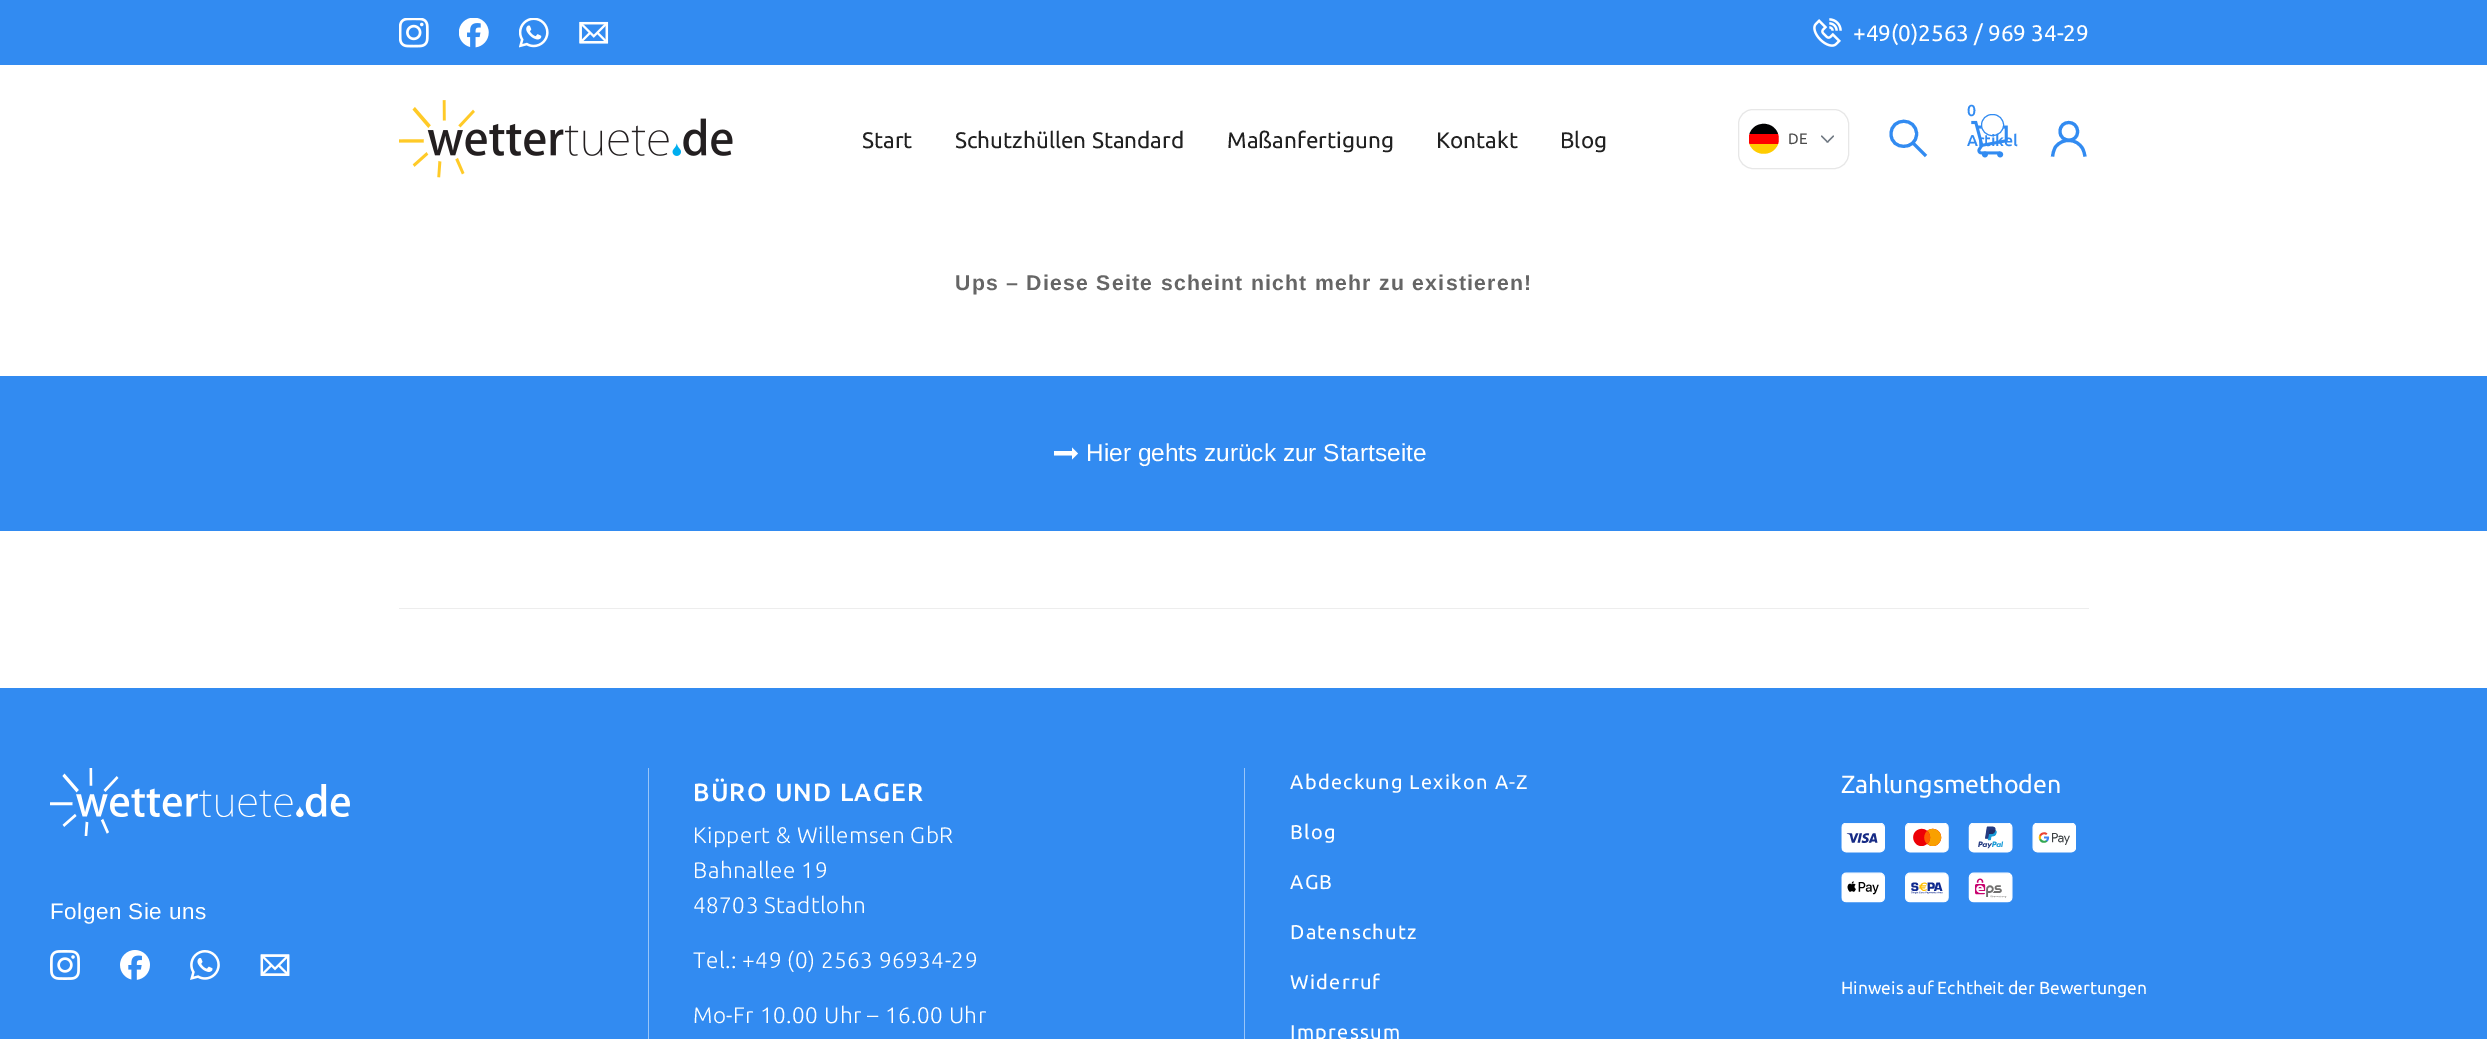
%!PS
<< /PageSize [2487 1039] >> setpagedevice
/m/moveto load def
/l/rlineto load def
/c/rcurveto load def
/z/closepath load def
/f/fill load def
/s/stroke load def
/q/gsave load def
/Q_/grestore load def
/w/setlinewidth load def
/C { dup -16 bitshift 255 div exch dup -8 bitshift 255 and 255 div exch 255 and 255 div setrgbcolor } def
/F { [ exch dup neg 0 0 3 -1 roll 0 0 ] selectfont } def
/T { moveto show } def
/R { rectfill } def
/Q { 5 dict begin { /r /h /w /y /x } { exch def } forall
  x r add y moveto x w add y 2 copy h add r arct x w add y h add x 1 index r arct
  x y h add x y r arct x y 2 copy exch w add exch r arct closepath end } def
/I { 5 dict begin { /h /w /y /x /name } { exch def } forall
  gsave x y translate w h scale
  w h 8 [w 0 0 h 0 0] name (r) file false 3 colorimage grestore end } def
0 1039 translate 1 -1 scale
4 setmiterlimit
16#FFFFFF C
0 0 2487 1039 R
16#328BF1 C
0 0 2487 65 R
(1.rgb) 399 18 30 30 I
(2.rgb) 459 18 30 30 I
(3.rgb) 519 18 30 30 I
(4.rgb) 579 21 30 23 I
(5.rgb) 1813 18 29 29 I
/Ubuntu-Regular 22.5 F
16#FFFFFF C
(+49\(0\)2563 / 969 34-29) 1853 41 T
(6.rgb) 399 100 334 78 I
16#212121 C
(Start) 862 148 T
(Schutzhüllen Standard) 955 148 T
(Maßanfertigung) 1227 148 T
(Kontakt) 1436 148 T
(Blog) 1560 148 T
16#E7E7E7 C
1738.5 109.5 110 59 14.5 Q s
16#FFCC00 C
1778 144 m -5 13 -23.5 13 -28.5 0 c z f
16#000001 C
1749.5 134 m 4.5 -13.5 24 -13.5 28.5 0 c z f
q
1749 124 30 30 rectclip
16#FF0000 C
1749 136 m .5 -2 l 28.5 0 l 1 3 1 7 0 10 c -28.5 0 l -1 -2.5 -.5 -5.5 -.5 -8 c z f
Q_
/Ubuntu-Regular 15 F
16#4B4B4B C
(DE) 1788 144 T
16#6E7781 C
1.2 w
1 setlinecap
1 setlinejoin
1833.5 136 m -5 5 l -1 1.5 -1 1.5 -2 0 c -5 -5 l s
16#328BF1 C
3.1 w
0 setlinecap
0 setlinejoin
1891 134 m 0 16.5 25.5 16.5 25.5 0 c 0 -17 -25.5 -17 -25.5 0 c z 1926 156 m -13.5 -13.5 l s
(7.rgb) 1971 120 37 38 I
16#FFFFFF C
1981.5 114.5 22 21 10.5 Q q f Q_
16#328BF1 C
1 w
s
/Ubuntu-Medium 16 F
(0) 1967 116 T
(Artikel) 1967 146 T
3.1 w
2060 131.5 m 0 11.5 18 11.5 17.5 0 c 0 -12 -17.5 -12 -17.5 0 c z 2052.5 156.5 m .5 -3 1 -6.5 3 -9.5 c 7 -9.5 21.5 -8.5 27 1.5 c 1.5 2.5 2 5.5 2.5 8 c s
/LiberationSans-Bold 21.25 F
16#666666 C
955 290 m 1.25 0 (Ups – Diese Seite scheint nicht mehr zu existieren!) ashow
16#328BF1 C
0 376 2487 155 R
16#FFFFFF C
1072 459.5 m 0 -4 l -18 0 l 0 -4.5 l 18 0 l 0 -3.5 l 6 6 l z f
/LiberationSans-Regular 24.4 F
(Hier gehts zurück zur Startseite) 1086 461 T
16#EDEDED C
399 608 1690 1 R
16#328BF1 C
0 688 2487 351 R
(8.rgb) 50 768 300 68 I
/LiberationSans-Regular 22.5 F
16#FFFFFF C
50 919 m .45 0 (Folgen Sie uns) ashow
(9.rgb) 50 950 30 30 I
(10.rgb) 120 950 30 30 I
(11.rgb) 190 950 30 30 I
(12.rgb) 260 954 30 22 I
16#99C5F8 C
648 768 1 271 R
/Ubuntu-Medium 25 F
16#FFFFFF C
693 801 m 1.25 0 (BÜRO UND LAGER) ashow
/Ubuntu-Light 22.5 F
693 843 m .45 0 (Kippert & Willemsen GbR) ashow
693 878 m .45 0 (Bahnallee 19) ashow
693 913 m .45 0 (48703 Stadtlohn) ashow
693 968 m .45 0 (Tel.: +49 \(0\) 2563 96934-29) ashow
693 1023 m .45 0 (Mo-Fr 10.00 Uhr – 16.00 Uhr) ashow
16#99C5F8 C
1244 768 1 271 R
/Ubuntu-Regular 20 F
16#FFFFFF C
1290 789 m 1.25 0 (Abdeckung Lexikon A-Z) ashow
1290 839 m 1.25 0 (Blog) ashow
1290 889 m 1.25 0 (AGB) ashow
1290 939 m 1.25 0 (Datenschutz) ashow
1290 989 m 1.25 0 (Widerruf) ashow
1290 1039 m 1.25 0 (Impressum) ashow
/Ubuntu-Regular 25 F
(Zahlungsmethoden) 1841 793 T
(13.rgb) 1841 823 235 80 I
/Ubuntu-Regular 17.5 F
(Hinweis auf Echtheit der Bewertungen) 1841 994 T
showpage
